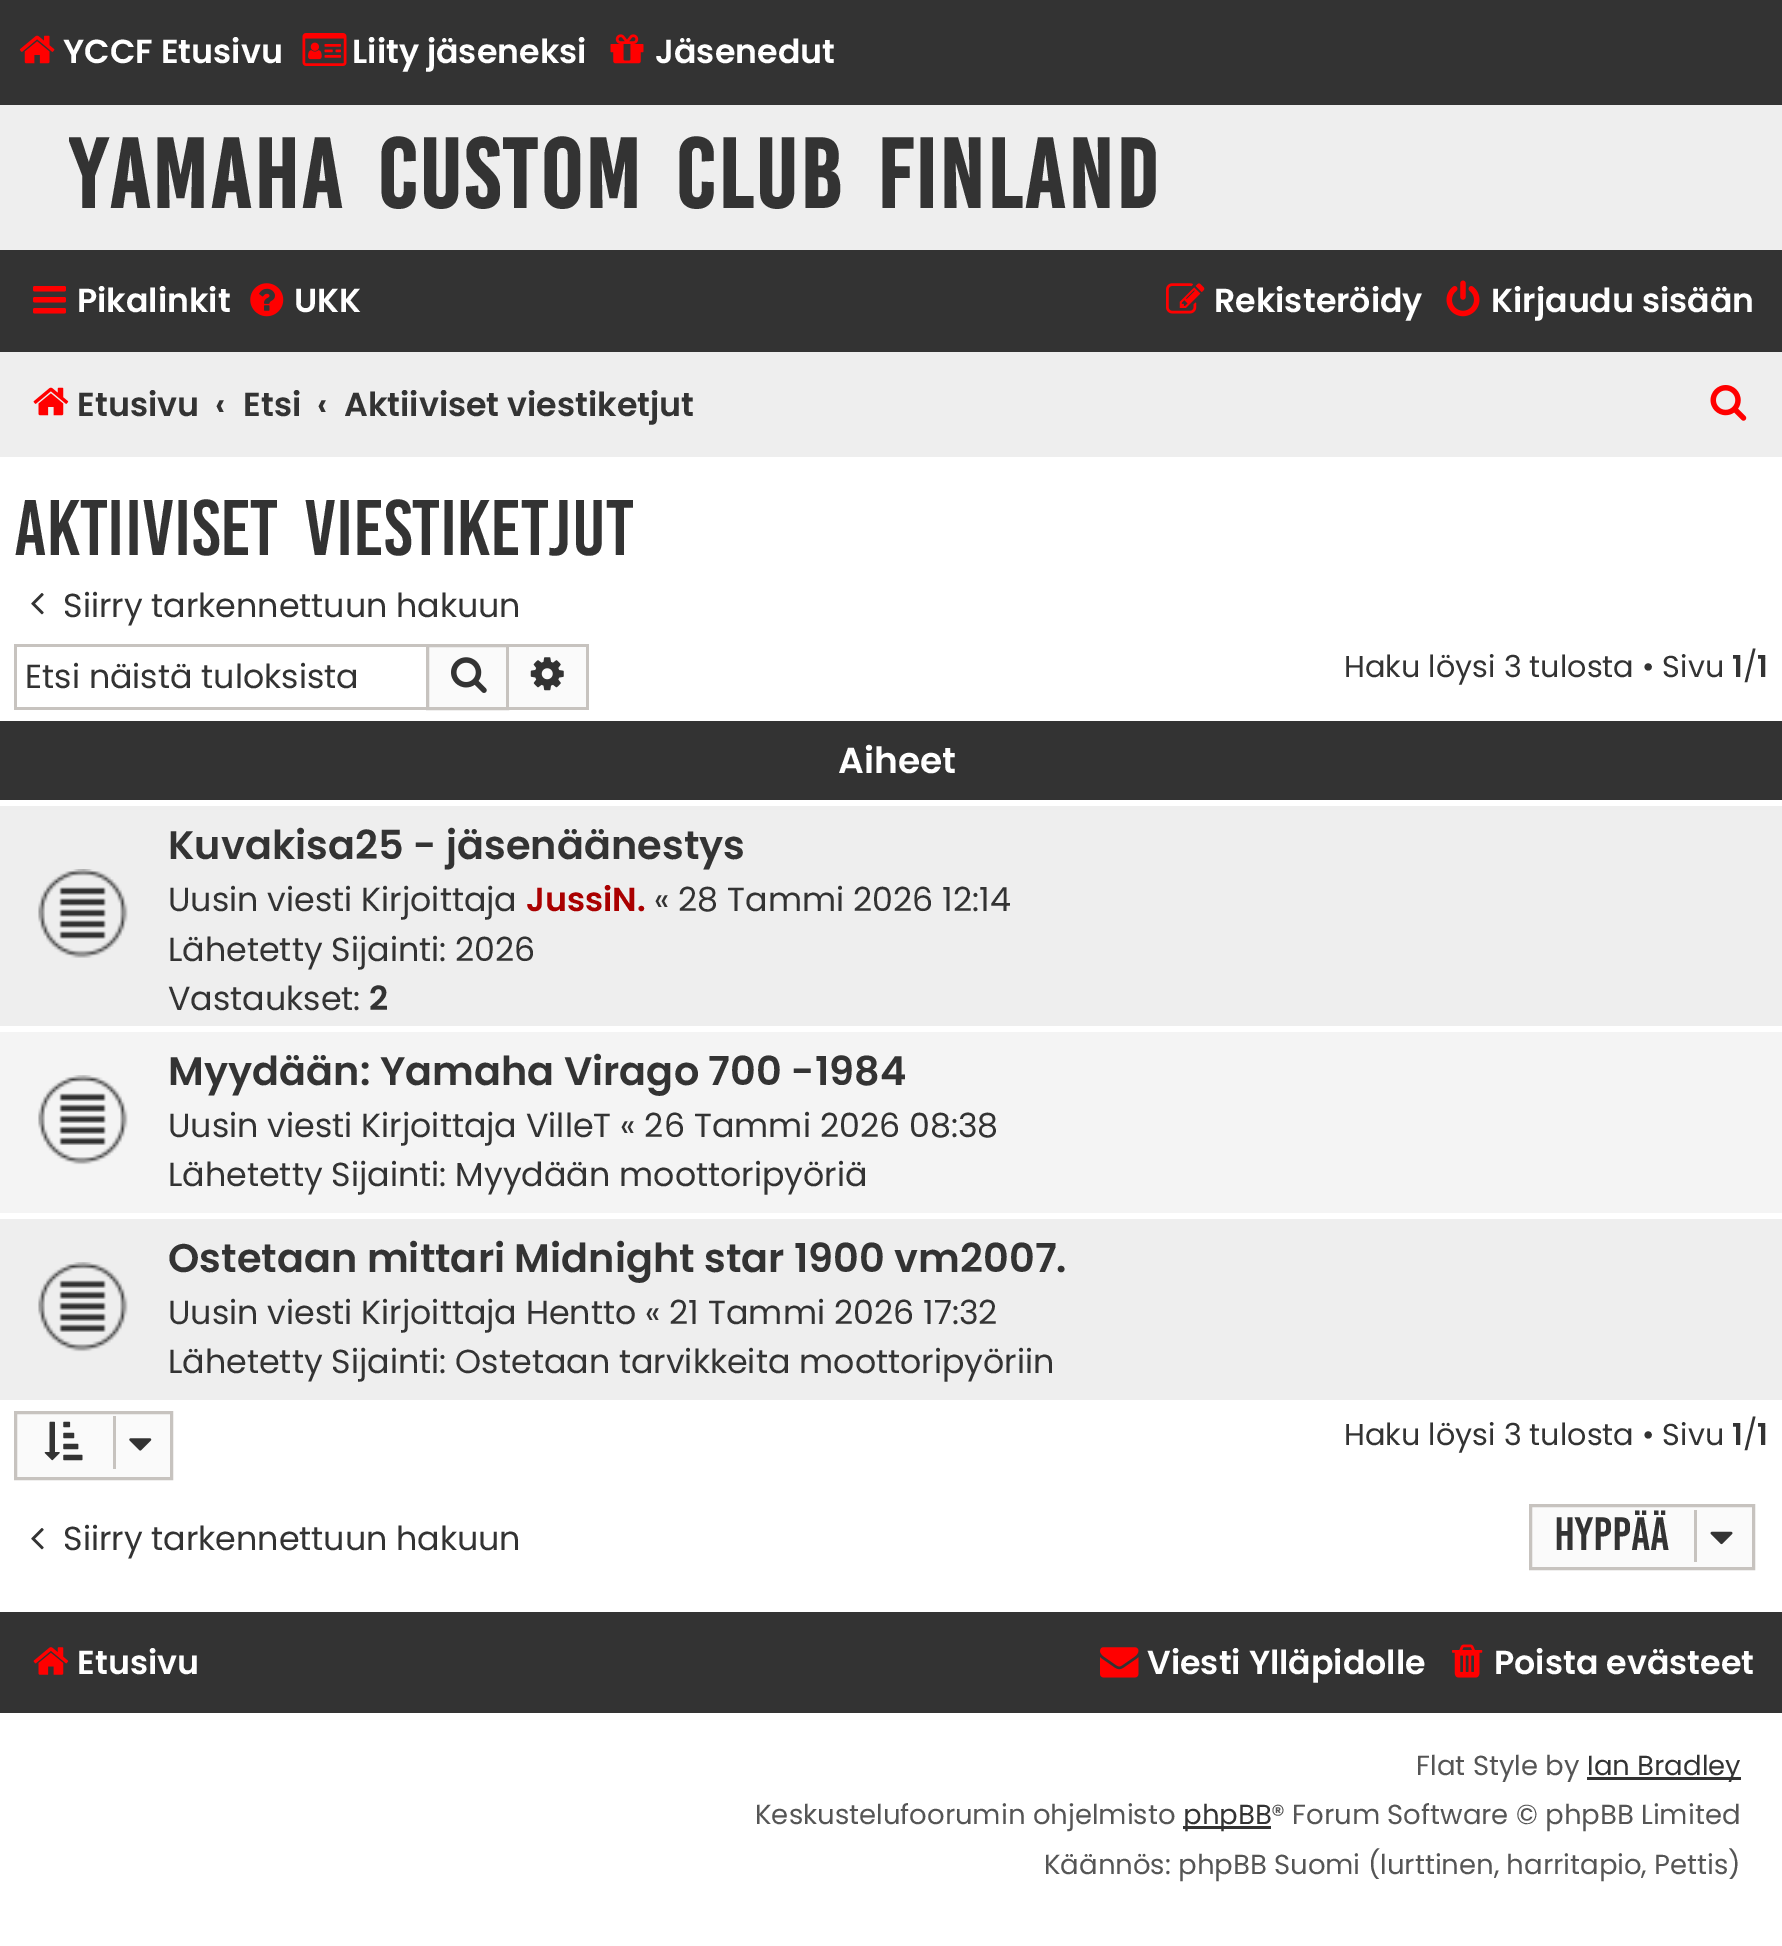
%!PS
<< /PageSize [1782 1946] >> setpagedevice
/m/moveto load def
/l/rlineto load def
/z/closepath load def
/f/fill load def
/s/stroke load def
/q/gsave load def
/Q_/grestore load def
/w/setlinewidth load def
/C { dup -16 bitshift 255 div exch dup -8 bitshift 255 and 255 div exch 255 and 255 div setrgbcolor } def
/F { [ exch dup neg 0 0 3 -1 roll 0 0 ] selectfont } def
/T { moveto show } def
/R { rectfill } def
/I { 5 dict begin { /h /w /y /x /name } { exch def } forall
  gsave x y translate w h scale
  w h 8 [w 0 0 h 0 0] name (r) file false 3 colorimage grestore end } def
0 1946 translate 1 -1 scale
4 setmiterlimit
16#FFFFFF C
0 0 1782 1946 R
16#333333 C
0 0 1782 105 R
(1.rgb) 19 35 36 29 I
/Poppins-SemiBold 33.25 F
16#FFFFFF C
(YCCF Etusivu) 63 63 T
(2.rgb) 302 33 45 33 I
(Liity jäseneksi) 352 63 T
(3.rgb) 610 34 34 30 I
(Jäsenedut) 655 63 T
16#EEEEEE C
0 105 1782 145 R
q
69 132 1092 91 rectclip
/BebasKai-Bold 75.6 F
16#333333 C
69 208 m 11 0 32 2.75 0 (Yamaha Custom Club Finland) awidthshow
Q_
16#333333 C
0 250 1782 102 R
(4.rgb) 33 286 33 28 I
16#FFFFFF C
(Pikalinkit) 77 312 T
(5.rgb) 250 283 34 34 I
(UKK) 294 312 T
(6.rgb) 1166 283 39 31 I
(Rekisteröidy) 1214 312 T
(7.rgb) 1446 280 34 37 I
(Kirjaudu sisään) 1491 312 T
16#EEEEEE C
0 352 1782 105 R
(8.rgb) 33 387 36 29 I
16#333333 C
(Etusivu) 77 416 T
(‹) 215 416 T
(Etsi) 243 416 T
(‹) 317 416 T
(Aktiiviset viestiketjut) 344 416 T
(9.rgb) 1710 385 37 36 I
/BebasKai-Regular 60.5 F
14 555 m 11 0 32 (Aktiiviset viestiketjut) widthshow
(10.rgb) 31 593 13 22 I
/Poppins-Regular 33.25 F
(Siirry tarkennettuun hakuun) 63 617 T
16#C7C3BF C
14 644 412 3 R
14 707 412 3 R
14 644 3 66 R
16#333333 C
(Etsi näistä tuloksista) 25 688 T
16#FAFAFA C
427.5 645.5 m 80 0 l 0 63 l -80 0 l z q f Q_
16#C7C3BF C
3 w
s
(11.rgb) 451 657 36 36 I
16#FAFAFA C
509 647 77 60 R
16#C7C3BF C
509 644 80 3 R
586 644 3 66 R
509 707 80 3 R
(12.rgb) 530 657 34 34 I
/Poppins-Regular 30.25 F
16#333333 C
(Haku löysi 3 tulosta • Sivu) 1344 677 T
/Poppins-SemiBold 30.25 F
(1) 1732 677 T
/Poppins-Regular 30.25 F
(/) 1743 677 T
/Poppins-SemiBold 30.25 F
(1) 1757 677 T
0 721 1782 79 R
/Poppins-SemiBold 36 F
16#FFFFFF C
(Aiheet) 838 773 T
16#EEEEEE C
0 806 1782 220 R
(13.rgb) 38 869 90 89 I
/Poppins-SemiBold 39.9 F
16#333333 C
(Kuvakisa25 - jäsenäänestys) 168 859 T
/Poppins-Regular 33.25 F
(Uusin viesti Kirjoittaja) 168 911 T
/Poppins-SemiBold 33.25 F
16#AA0000 C
(JussiN.) 526 911 T
/Poppins-Regular 33.25 F
16#333333 C
(« 28 Tammi 2026 12:14) 654 911 T
(Lähetetty Sijainti: 2026) 168 961 T
(Vastaukset:) 168 1010 T
/Poppins-SemiBold 33.25 F
(2) 369 1010 T
16#F4F4F4 C
0 1032 1782 181 R
(14.rgb) 38 1075 90 90 I
/Poppins-SemiBold 39.9 F
16#333333 C
(Myydään: Yamaha Virago 700 -1984) 168 1085 T
/Poppins-Regular 33.25 F
(Uusin viesti Kirjoittaja VilleT « 26 Tammi 2026 08:38) 168 1137 T
(Lähetetty Sijainti: Myydään moottoripyöriä) 168 1186 T
16#EEEEEE C
0 1219 1782 181 R
(15.rgb) 38 1262 90 90 I
/Poppins-SemiBold 39.9 F
16#333333 C
(Ostetaan mittari Midnight star 1900 vm2007.) 168 1272 T
/Poppins-Regular 33.25 F
(Uusin viesti Kirjoittaja Hentto « 21 Tammi 2026 17:32) 168 1324 T
(Lähetetty Sijainti: Ostetaan tarvikkeita moottoripyöriin) 168 1373 T
16#FAFAFA C
15.5 1412.5 m 156 0 l 0 66 l -156 0 l z q f Q_
16#C7C3BF C
s
(16.rgb) 44 1421 39 40 I
113 1416 3 53 R
(17.rgb) 129 1438 23 13 I
/Poppins-Regular 30.25 F
16#333333 C
(Haku löysi 3 tulosta • Sivu) 1344 1445 T
/Poppins-SemiBold 30.25 F
(1) 1732 1445 T
/Poppins-Regular 30.25 F
(/) 1743 1445 T
/Poppins-SemiBold 30.25 F
(1) 1757 1445 T
(10.rgb) 31 1528 13 22 I
/Poppins-Regular 33.25 F
(Siirry tarkennettuun hakuun) 63 1550 T
16#FAFAFA C
1530.5 1505.5 m 223 0 l 0 63 l -223 0 l z q f Q_
16#C7C3BF C
s
/BebasKai-Regular 36 F
16#333333 C
(Hyppää) 1554 1550 T
16#C7C3BF C
1694 1510 3 52 R
(18.rgb) 1710 1531 23 14 I
16#333333 C
0 1612 1782 101 R
(19.rgb) 33 1647 36 28 I
/Poppins-SemiBold 33.25 F
16#FFFFFF C
(Etusivu) 77 1674 T
(20.rgb) 1100 1647 39 31 I
(Viesti Ylläpidolle) 1147 1674 T
(21.rgb) 1452 1644 31 34 I
(Poista evästeet) 1494 1674 T
/Poppins-Regular 27.5 F
16#555555 C
(Flat Style by) 1416 1775 T
16#333333 C
1587 1777 154 3 R
(Ian Bradley) 1587 1775 T
16#555555 C
(Keskustelufoorumin ohjelmisto) 755 1824 T
16#333333 C
1183 1826 88 3 R
(phpBB) 1183 1824 T
16#555555 C
(® Forum Software © phpBB Limited) 1271 1824 T
(Käännös: phpBB Suomi \(lurttinen, harritapio, Pettis\)) 1044 1874 T
showpage
